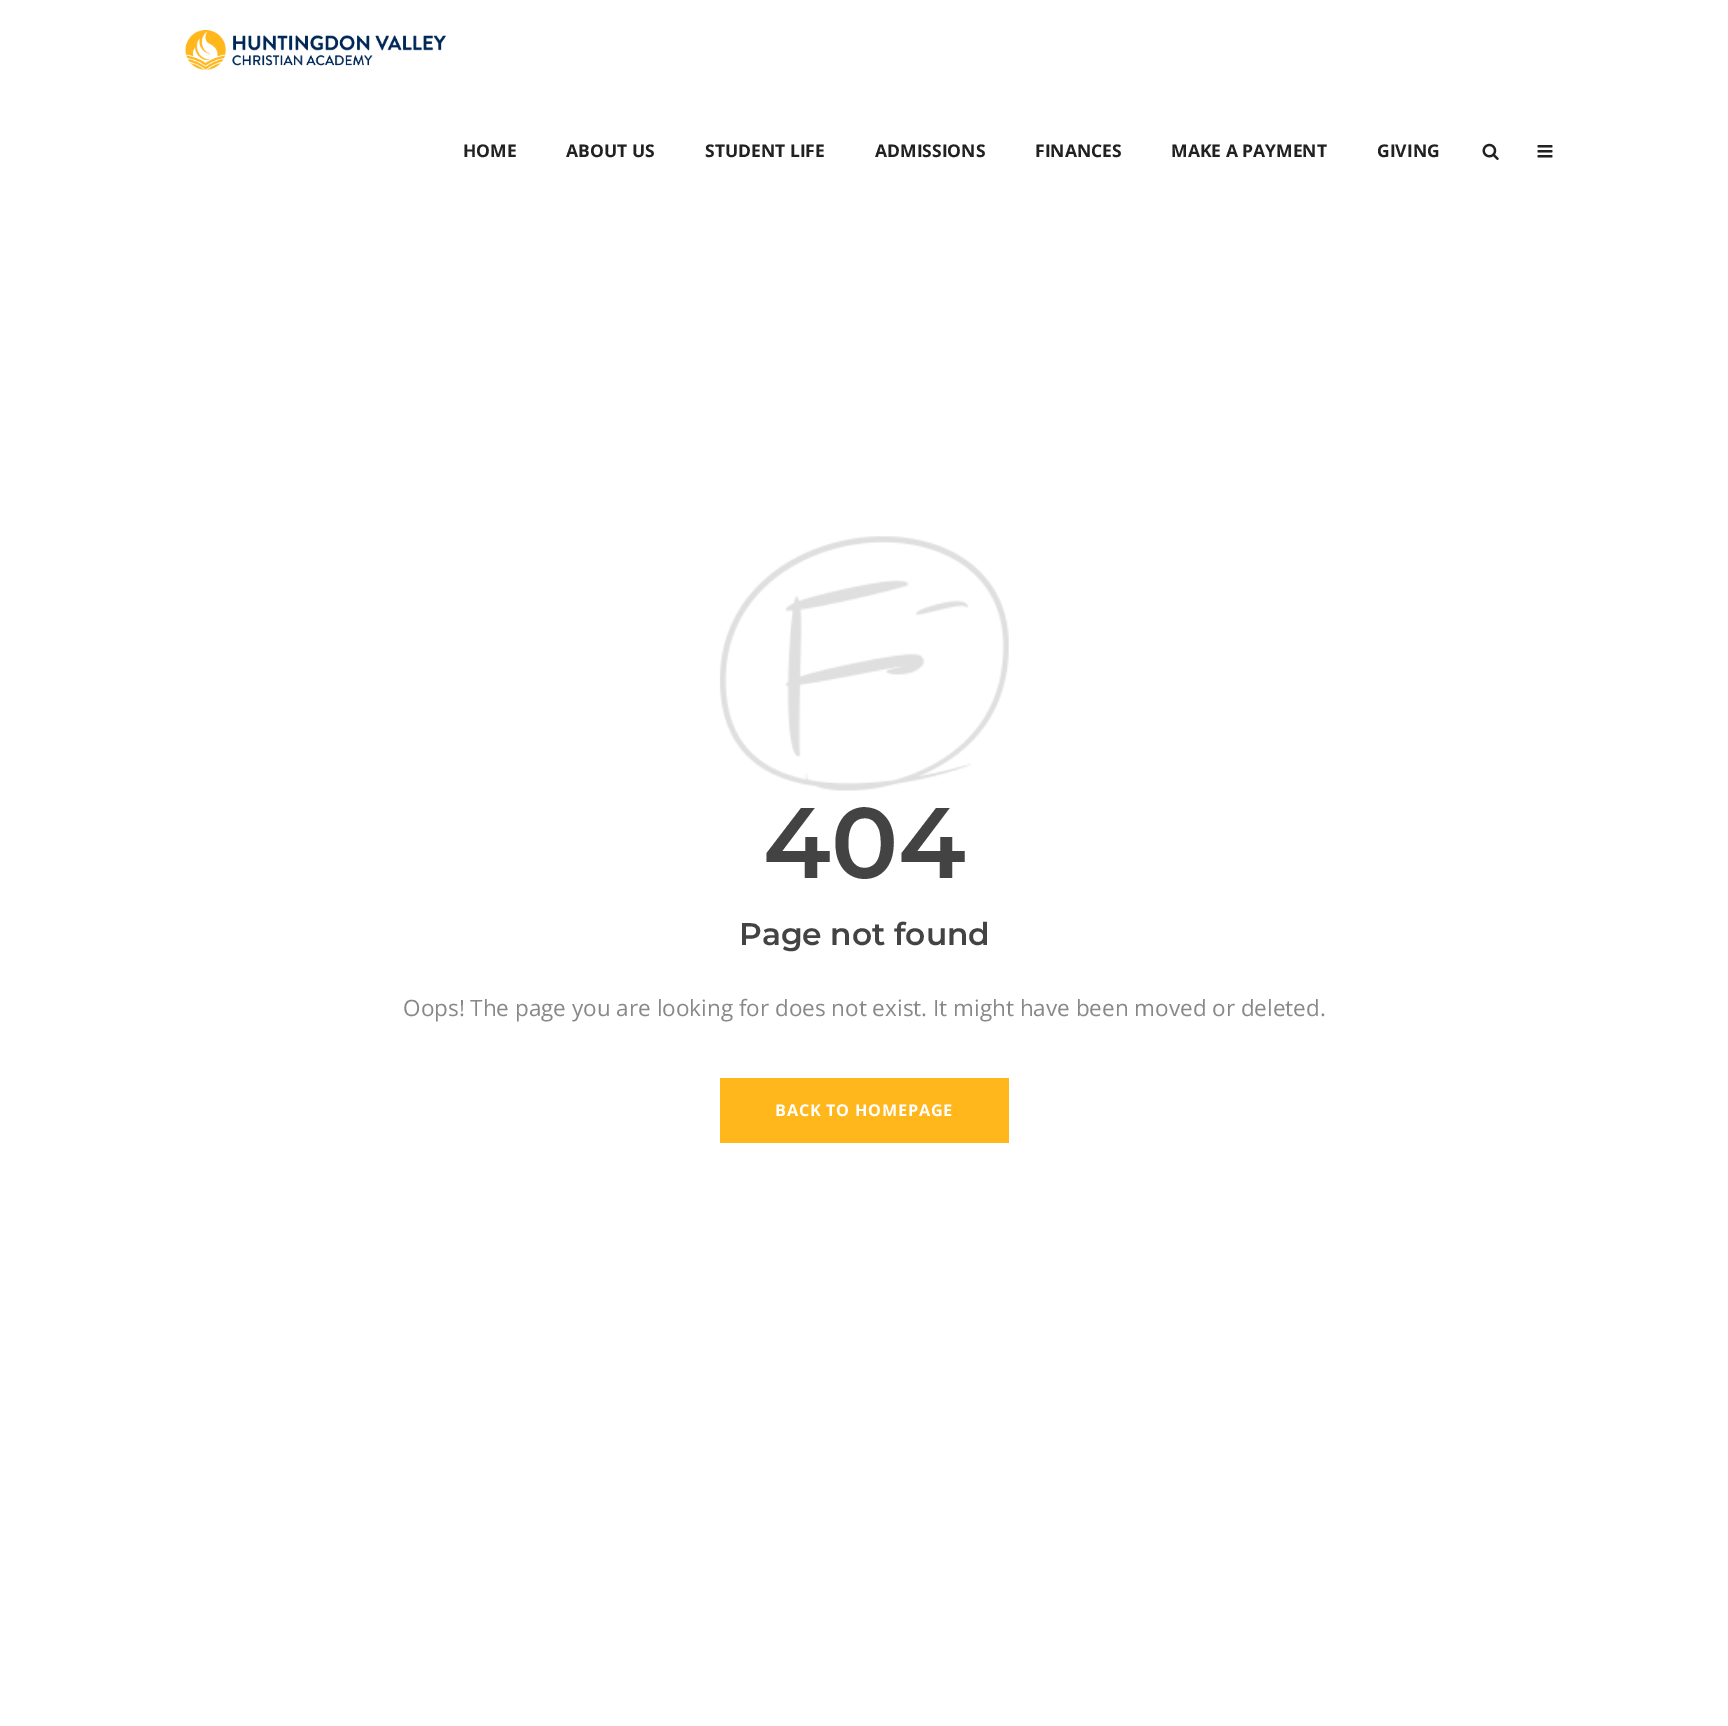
%!PS
<< /PageSize [1728 1726] >> setpagedevice
/m/moveto load def
/C { dup -16 bitshift 255 div exch dup -8 bitshift 255 and 255 div exch 255 and 255 div setrgbcolor } def
/F { [ exch dup neg 0 0 3 -1 roll 0 0 ] selectfont } def
/T { moveto show } def
/R { rectfill } def
/I { 5 dict begin { /h /w /y /x /name } { exch def } forall
  gsave x y translate w h scale
  w h 8 [w 0 0 h 0 0] name (r) file false 3 colorimage grestore end } def
0 1726 translate 1 -1 scale
4 setmiterlimit
16#FFFFFF C
0 0 1728 1726 R
(1.rgb) 185 29 261 41 I
/OpenSans-Bold 17.5 F
16#212121 C
(HOME) 463 157 T
(ABOUT US) 566 157 T
(STUDENT LIFE) 705 157 T
(ADMISSIONS) 875 157 T
(FINANCES) 1035 157 T
(MAKE A PAYMENT) 1171 157 T
(GIVING) 1377 157 T
(2.rgb) 1482 143 17 17 I
(3.rgb) 1537 145 16 13 I
(4.rgb) 719 536 290 255 I
/Montserrat-SemiBold 100 F
16#434343 C
(404) 763 878 T
/Montserrat-SemiBold 31.25 F
(Page not found) 739 945 T
/OpenSans-Regular 22.5 F
16#888888 C
(Oops! The page you are looking for does not exist. It might have been moved or deleted.) 403 1016 T
16#FFB71B C
720 1078 289 65 R
/OpenSans-Bold 16.25 F
16#FFFFFF C
775 1116 m .75 0 (BACK TO HOMEPAGE) ashow
showpage
